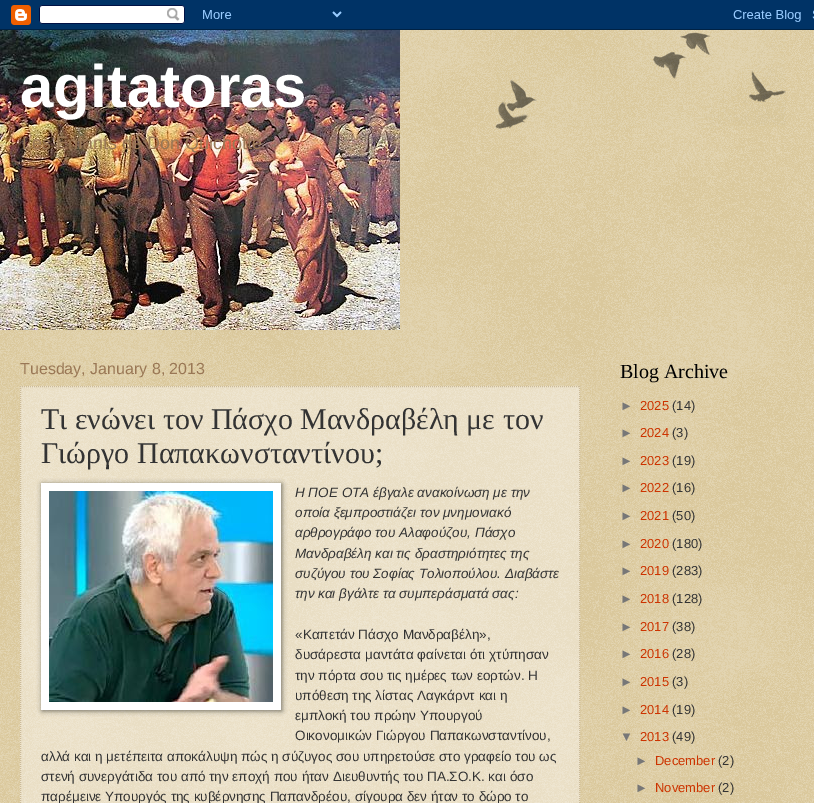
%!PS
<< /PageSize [814 803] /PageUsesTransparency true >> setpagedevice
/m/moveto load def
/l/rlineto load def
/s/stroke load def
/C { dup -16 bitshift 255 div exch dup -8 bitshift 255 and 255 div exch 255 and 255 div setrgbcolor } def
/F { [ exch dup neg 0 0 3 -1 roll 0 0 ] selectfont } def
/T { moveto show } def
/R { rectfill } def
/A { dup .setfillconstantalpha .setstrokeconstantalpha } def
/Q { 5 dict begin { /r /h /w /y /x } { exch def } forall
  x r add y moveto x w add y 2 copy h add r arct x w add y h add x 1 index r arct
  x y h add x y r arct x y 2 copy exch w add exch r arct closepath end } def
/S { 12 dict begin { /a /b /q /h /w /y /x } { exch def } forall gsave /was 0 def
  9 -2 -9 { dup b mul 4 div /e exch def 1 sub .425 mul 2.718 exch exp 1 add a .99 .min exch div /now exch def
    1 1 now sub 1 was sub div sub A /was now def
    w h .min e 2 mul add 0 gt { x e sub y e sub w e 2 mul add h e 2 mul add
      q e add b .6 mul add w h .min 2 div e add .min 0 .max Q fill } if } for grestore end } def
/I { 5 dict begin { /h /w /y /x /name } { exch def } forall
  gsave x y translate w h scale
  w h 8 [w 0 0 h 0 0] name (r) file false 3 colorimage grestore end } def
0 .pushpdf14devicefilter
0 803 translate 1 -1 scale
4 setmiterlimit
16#C0A154 C
0 0 814 803 R
(1.rgb) 0 30 814 773 I
(2.rgb) 0 0 814 30 I
(3.rgb) 495 32 291 97 I
(4.rgb) 0 30 400 300 I
/LiberationSans-Bold 60 F
16#FFFFFF C
(agitatoras) 20 107 T
/LiberationSans-Regular 18 F
16#997755 C
(Les Enfants de Don Quichotte) 22 149 T
/LiberationSans-Regular 16 F
(Tuesday, January 8, 2013) 20 374 T
0.4 A
16#FFFFFF C
20 386 560 417 R
1 A
16#CCBB99 C
[1 1] 0 setdash
20 386.5 m 560 0 l s
579.5 386 m 0 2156 l s
20.5 386 m 0 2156 l s
/LiberationSerif-Regular 30 F
16#333333 C
(Τι ενώνει τον Πάσχο Μανδραβέλη με τον) 41 429 T
(Γιώργο Παπακωνσταντίνου;) 41 463 T
16#000000 C
42 484 240 227 0 2.5 .5 S
16#FFFFFF C
41 483 240 227 R
(5.rgb) 49 491 224 211 I
/LiberationSans-Italic 13.5 F
16#333333 C
(Η ΠΟΕ ΟΤΑ έβγαλε ανακοίνωση με την) 295 497 T
(οποία ξεμπροστιάζει τον μνημονιακό) 295 517 T
(αρθρογράφο του Αλαφούζου, Πάσχο) 295 537 T
(Μανδραβέλη και τις δραστηριότητες της) 295 558 T
(συζύγου του Σοφίας Τολιοπούλου. Διαβάστε) 295 578 T
(την και βγάλτε τα συμπεράσματά σας:) 295 598 T
/LiberationSans-Regular 13.5 F
(«Καπετάν Πάσχο Μανδραβέλη»,) 295 639 T
(δυσάρεστα μαντάτα φαίνεται ότι χτύπησαν) 295 659 T
(την πόρτα σου τις ημέρες των εορτών. Η) 295 680 T
(υπόθεση της λίστας Λαγκάρντ και η) 295 700 T
(εμπλοκή του πρώην Υπουργού) 295 720 T
(Οικονομικών Γιώργου Παπακωνσταντίνου,) 295 740 T
(αλλά και η μετέπειτα αποκάλυψη πώς η σύζυγος σου υπηρετούσε στο γραφείο του ως) 41 761 T
(στενή συνεργάτιδα του από την εποχή που ήταν Διευθυντής του ΠΑ.ΣΟ.Κ. και όσο) 41 781 T
(παρέμεινε Υπουργός της κυβέρνησης Παπανδρέου, σίγουρα δεν ήταν το δώρο το) 41 801 T
/LiberationSerif-Regular 20 F
16#000000 C
(Blog Archive) 620 378 T
/LiberationSans-Regular 13 F
16#777777 C
(►) 620 410 T
16#CC3300 C
(2025) 640 410 T
16#333333 C
(\(14\)) 672 410 T
16#777777 C
(►) 620 437 T
16#CC3300 C
(2024) 640 437 T
16#333333 C
(\(3\)) 672 437 T
16#777777 C
(►) 620 465 T
16#CC3300 C
(2023) 640 465 T
16#333333 C
(\(19\)) 672 465 T
16#777777 C
(►) 620 492 T
16#CC3300 C
(2022) 640 492 T
16#333333 C
(\(16\)) 672 492 T
16#777777 C
(►) 620 520 T
16#CC3300 C
(2021) 640 520 T
16#333333 C
(\(50\)) 672 520 T
16#777777 C
(►) 620 548 T
16#CC3300 C
(2020) 640 548 T
16#333333 C
(\(180\)) 672 548 T
16#777777 C
(►) 620 575 T
16#CC3300 C
(2019) 640 575 T
16#333333 C
(\(283\)) 672 575 T
16#777777 C
(►) 620 603 T
16#CC3300 C
(2018) 640 603 T
16#333333 C
(\(128\)) 672 603 T
16#777777 C
(►) 620 631 T
16#CC3300 C
(2017) 640 631 T
16#333333 C
(\(38\)) 672 631 T
16#777777 C
(►) 620 658 T
16#CC3300 C
(2016) 640 658 T
16#333333 C
(\(28\)) 672 658 T
16#777777 C
(►) 620 686 T
16#CC3300 C
(2015) 640 686 T
16#333333 C
(\(3\)) 672 686 T
16#777777 C
(►) 620 714 T
16#CC3300 C
(2014) 640 714 T
16#333333 C
(\(19\)) 672 714 T
16#777777 C
(▼) 620 741 T
16#CC3300 C
(2013) 640 741 T
16#333333 C
(\(49\)) 672 741 T
16#777777 C
(►) 635 765 T
16#CC3300 C
(December) 655 765 T
16#333333 C
(\(2\)) 718 765 T
16#777777 C
(►) 635 792 T
16#CC3300 C
(November) 655 792 T
16#333333 C
(\(2\)) 718 792 T
.poppdf14devicefilter showpage
